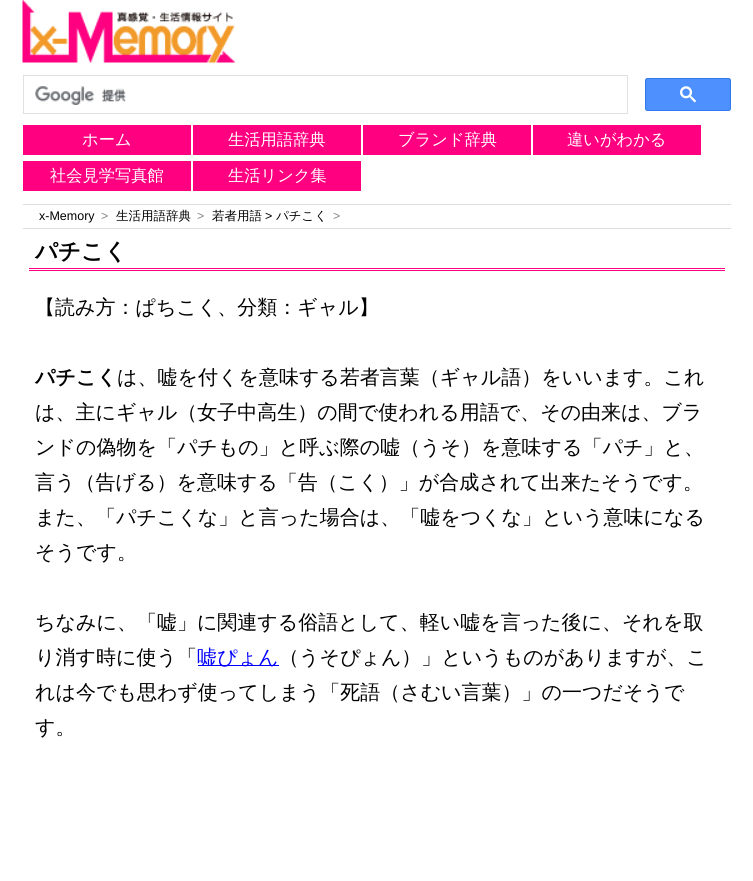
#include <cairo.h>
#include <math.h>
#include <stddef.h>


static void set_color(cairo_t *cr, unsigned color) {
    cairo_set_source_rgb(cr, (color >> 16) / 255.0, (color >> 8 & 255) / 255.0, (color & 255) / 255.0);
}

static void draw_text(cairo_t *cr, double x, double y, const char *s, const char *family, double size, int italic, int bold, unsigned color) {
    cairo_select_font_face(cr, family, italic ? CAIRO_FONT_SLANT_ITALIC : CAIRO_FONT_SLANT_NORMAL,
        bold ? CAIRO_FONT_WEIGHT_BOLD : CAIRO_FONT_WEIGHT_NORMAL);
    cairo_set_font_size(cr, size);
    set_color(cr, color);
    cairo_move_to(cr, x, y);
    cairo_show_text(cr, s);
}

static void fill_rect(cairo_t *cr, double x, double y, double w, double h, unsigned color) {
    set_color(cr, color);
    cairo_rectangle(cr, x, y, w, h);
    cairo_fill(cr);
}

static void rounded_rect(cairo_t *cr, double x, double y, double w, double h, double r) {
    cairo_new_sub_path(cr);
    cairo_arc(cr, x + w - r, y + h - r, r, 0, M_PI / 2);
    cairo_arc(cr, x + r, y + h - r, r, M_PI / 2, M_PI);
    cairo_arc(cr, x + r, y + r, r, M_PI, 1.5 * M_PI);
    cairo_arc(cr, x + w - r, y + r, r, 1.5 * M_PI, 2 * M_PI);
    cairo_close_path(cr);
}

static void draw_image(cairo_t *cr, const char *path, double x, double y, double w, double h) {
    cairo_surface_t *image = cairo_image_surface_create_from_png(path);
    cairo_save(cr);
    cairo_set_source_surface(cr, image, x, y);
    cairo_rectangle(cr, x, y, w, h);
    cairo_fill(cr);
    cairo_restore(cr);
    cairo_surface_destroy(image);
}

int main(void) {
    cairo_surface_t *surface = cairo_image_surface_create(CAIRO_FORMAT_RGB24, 753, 881);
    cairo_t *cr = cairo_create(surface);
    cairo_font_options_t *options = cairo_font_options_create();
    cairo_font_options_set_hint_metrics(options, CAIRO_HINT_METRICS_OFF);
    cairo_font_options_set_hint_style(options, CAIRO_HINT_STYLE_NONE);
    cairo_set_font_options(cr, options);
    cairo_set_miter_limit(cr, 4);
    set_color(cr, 0xFFFFFF);
    cairo_paint(cr);
    draw_image(cr, "assets/img1.png", 22, 0, 213, 63);
    cairo_rectangle(cr, 23.5, 75.5, 604, 38);
    set_color(cr, 0xDFE1E5);
    cairo_set_line_width(cr, 1);
    cairo_stroke(cr);
    draw_image(cr, "assets/img2.png", 35, 86, 91, 19);
    set_color(cr, 0x4D90FE);
    rounded_rect(cr, 645.5, 78.5, 85, 32, 2);
    cairo_fill_preserve(cr);
    set_color(cr, 0x3079ED);
    cairo_stroke(cr);
    draw_image(cr, "assets/img3.png", 680, 86, 16, 17);
    fill_rect(cr, 23, 125, 168, 30, 0xFF0080);
    draw_text(cr, 82, 145, "ホーム", "WenQuanYi Zen Hei Medium", 16.25, 0, 0, 0xFFFFFF);
    fill_rect(cr, 193, 125, 168, 30, 0xFF0080);
    draw_text(cr, 228, 145, "生活用語辞典", "WenQuanYi Zen Hei Medium", 16.25, 0, 0, 0xFFFFFF);
    fill_rect(cr, 363, 125, 168, 30, 0xFF0080);
    draw_text(cr, 398, 145, "ブランド辞典", "WenQuanYi Zen Hei Medium", 16.25, 0, 0, 0xFFFFFF);
    fill_rect(cr, 533, 125, 168, 30, 0xFF0080);
    draw_text(cr, 567, 145, "違いがわかる", "WenQuanYi Zen Hei Medium", 16.25, 0, 0, 0xFFFFFF);
    fill_rect(cr, 23, 161, 168, 30, 0xFF0080);
    draw_text(cr, 50, 181, "社会見学写真館", "WenQuanYi Zen Hei Medium", 16.25, 0, 0, 0xFFFFFF);
    fill_rect(cr, 193, 161, 168, 30, 0xFF0080);
    draw_text(cr, 228, 181, "生活リンク集", "WenQuanYi Zen Hei Medium", 16.25, 0, 0, 0xFFFFFF);
    fill_rect(cr, 23, 204, 708, 1, 0xDDDDDD);
    fill_rect(cr, 23, 228, 708, 1, 0xDDDDDD);
    draw_text(cr, 39, 220, "x-Memory", "Liberation Sans", 12.5, 0, 0, 0x000000);
    draw_text(cr, 101, 220, ">", "Liberation Sans", 12.5, 0, 0, 0x888888);
    draw_text(cr, 116, 220, "生活用語辞典", "WenQuanYi Zen Hei Medium", 12.5, 0, 0, 0x000000);
    draw_text(cr, 197, 220, ">", "Liberation Sans", 12.5, 0, 0, 0x888888);
    draw_text(cr, 212, 220, "若者用語", "WenQuanYi Zen Hei Medium", 12.5, 0, 0, 0x000000);
    draw_text(cr, 265, 220, ">", "Liberation Sans", 12.5, 0, 0, 0x000000);
    draw_text(cr, 276, 220, "パチこく", "WenQuanYi Zen Hei Medium", 12.5, 0, 0, 0x000000);
    draw_text(cr, 333, 220, ">", "Liberation Sans", 12.5, 0, 0, 0x888888);
    fill_rect(cr, 29, 268, 696, 1, 0xFF0080);
    fill_rect(cr, 29, 270, 696, 1, 0xFF0080);
    draw_text(cr, 35, 259, "パチこく", "WenQuanYi Zen Hei", 22.5, 0, 1, 0x000000);
    draw_text(cr, 35, 314, "【読み方：ぱちこく、分類：ギャル】", "WenQuanYi Zen Hei Medium", 20, 0, 0, 0x000000);
    draw_text(cr, 35, 384, "パチこく", "WenQuanYi Zen Hei", 20, 0, 1, 0x000000);
    draw_text(cr, 117, 384, "は、嘘を付くを意味する若者言葉（ギャル語）をいいます。これ", "WenQuanYi Zen Hei Medium", 20, 0, 0, 0x000000);
    draw_text(cr, 35, 419, "は、主にギャル（女子中高生）の間で使われる用語で、その由来は、ブラ", "WenQuanYi Zen Hei Medium", 20, 0, 0, 0x000000);
    draw_text(cr, 35, 454, "ンドの偽物を「パチもの」と呼ぶ際の嘘（うそ）を意味する「パチ」と、", "WenQuanYi Zen Hei Medium", 20, 0, 0, 0x000000);
    draw_text(cr, 35, 489, "言う（告げる）を意味する「告（こく）」が合成されて出来たそうです。", "WenQuanYi Zen Hei Medium", 20, 0, 0, 0x000000);
    draw_text(cr, 35, 524, "また、「パチこくな」と言った場合は、「嘘をつくな」という意味になる", "WenQuanYi Zen Hei Medium", 20, 0, 0, 0x000000);
    draw_text(cr, 35, 559, "そうです。", "WenQuanYi Zen Hei Medium", 20, 0, 0, 0x000000);
    draw_text(cr, 35, 629, "ちなみに、「嘘」に関連する俗語として、軽い嘘を言った後に、それを取", "WenQuanYi Zen Hei Medium", 20, 0, 0, 0x000000);
    draw_text(cr, 35, 664, "り消す時に使う「", "WenQuanYi Zen Hei Medium", 20, 0, 0, 0x000000);
    fill_rect(cr, 198, 665, 81, 1, 0x0000FF);
    draw_text(cr, 197, 664, "嘘ぴょん", "WenQuanYi Zen Hei Medium", 20, 0, 0, 0x0000FF);
    draw_text(cr, 279, 664, "（うそぴょん）」というものがありますが、こ", "WenQuanYi Zen Hei Medium", 20, 0, 0, 0x000000);
    draw_text(cr, 35, 699, "れは今でも思わず使ってしまう「死語（さむい言葉）」の一つだそうで", "WenQuanYi Zen Hei Medium", 20, 0, 0, 0x000000);
    draw_text(cr, 35, 734, "す。", "WenQuanYi Zen Hei Medium", 20, 0, 0, 0x000000);
    cairo_surface_write_to_png(surface, "output.png");
    cairo_font_options_destroy(options);
    cairo_destroy(cr);
    cairo_surface_destroy(surface);
    return 0;
}
